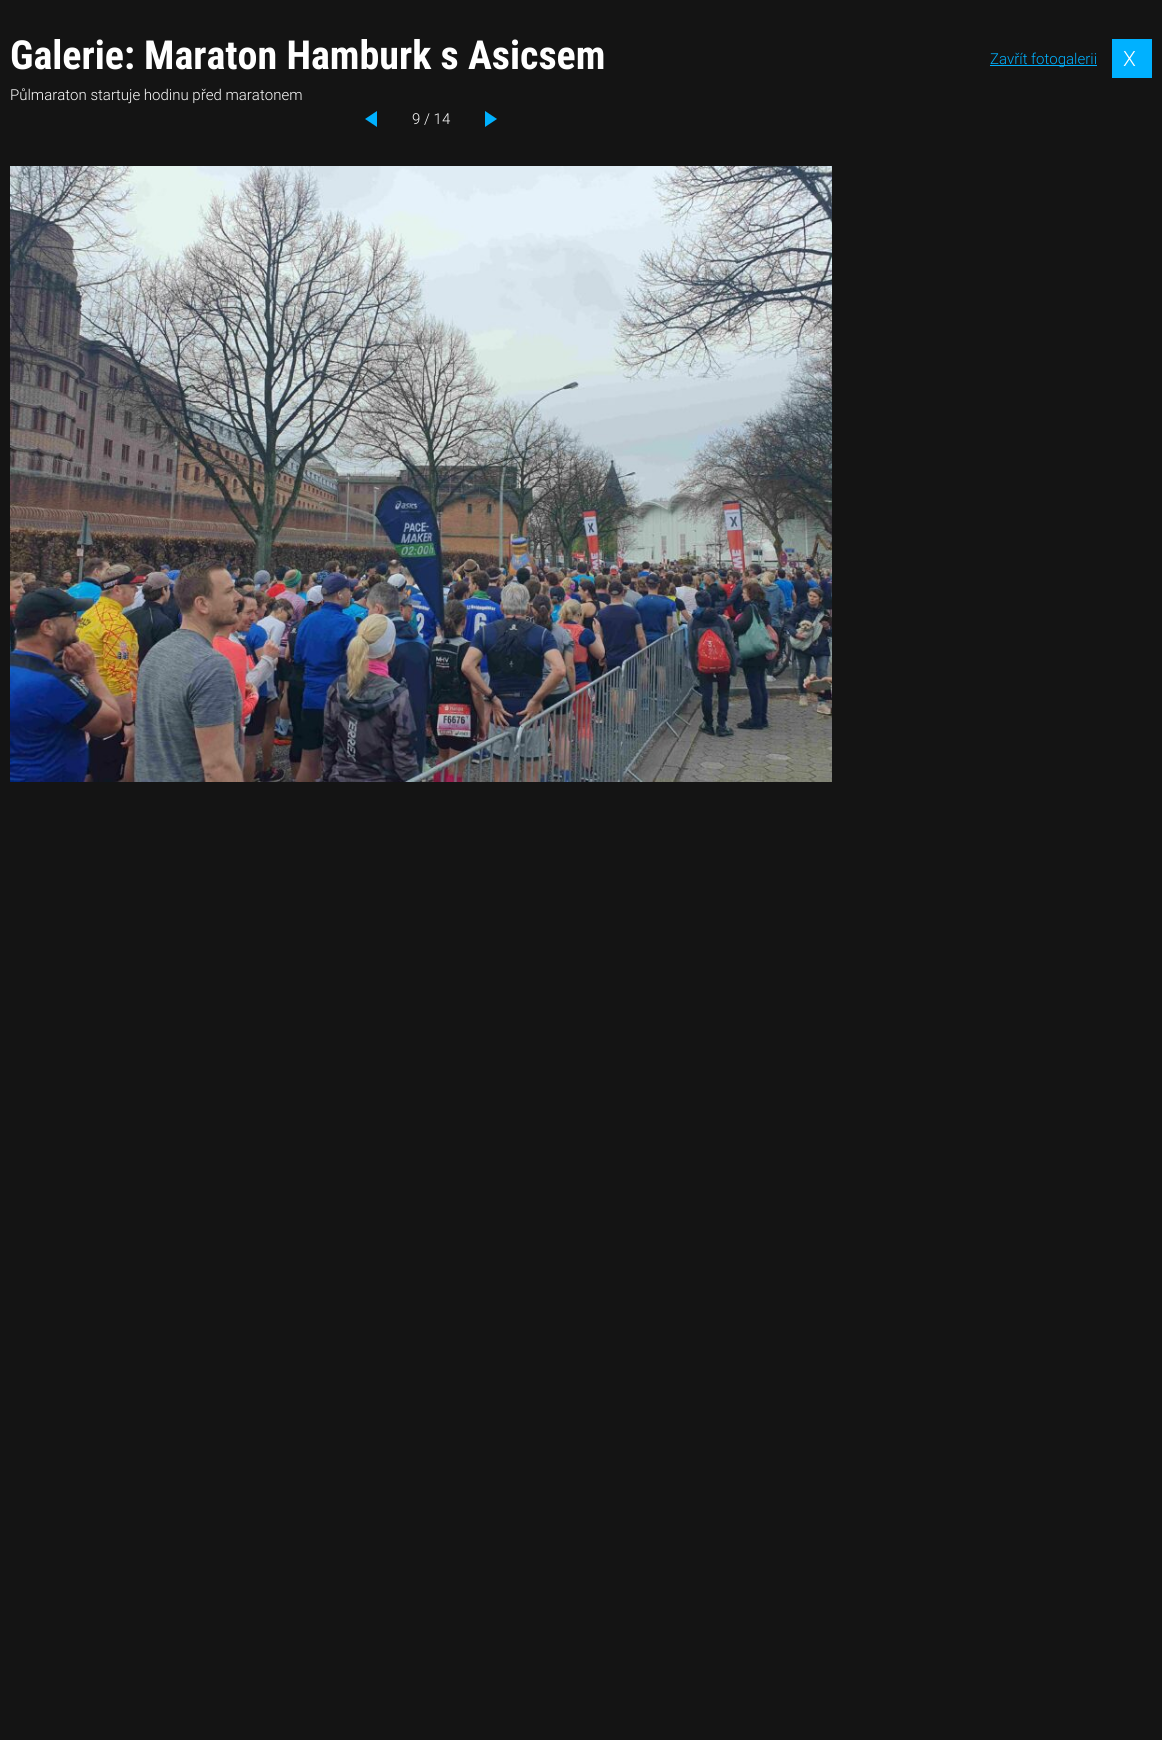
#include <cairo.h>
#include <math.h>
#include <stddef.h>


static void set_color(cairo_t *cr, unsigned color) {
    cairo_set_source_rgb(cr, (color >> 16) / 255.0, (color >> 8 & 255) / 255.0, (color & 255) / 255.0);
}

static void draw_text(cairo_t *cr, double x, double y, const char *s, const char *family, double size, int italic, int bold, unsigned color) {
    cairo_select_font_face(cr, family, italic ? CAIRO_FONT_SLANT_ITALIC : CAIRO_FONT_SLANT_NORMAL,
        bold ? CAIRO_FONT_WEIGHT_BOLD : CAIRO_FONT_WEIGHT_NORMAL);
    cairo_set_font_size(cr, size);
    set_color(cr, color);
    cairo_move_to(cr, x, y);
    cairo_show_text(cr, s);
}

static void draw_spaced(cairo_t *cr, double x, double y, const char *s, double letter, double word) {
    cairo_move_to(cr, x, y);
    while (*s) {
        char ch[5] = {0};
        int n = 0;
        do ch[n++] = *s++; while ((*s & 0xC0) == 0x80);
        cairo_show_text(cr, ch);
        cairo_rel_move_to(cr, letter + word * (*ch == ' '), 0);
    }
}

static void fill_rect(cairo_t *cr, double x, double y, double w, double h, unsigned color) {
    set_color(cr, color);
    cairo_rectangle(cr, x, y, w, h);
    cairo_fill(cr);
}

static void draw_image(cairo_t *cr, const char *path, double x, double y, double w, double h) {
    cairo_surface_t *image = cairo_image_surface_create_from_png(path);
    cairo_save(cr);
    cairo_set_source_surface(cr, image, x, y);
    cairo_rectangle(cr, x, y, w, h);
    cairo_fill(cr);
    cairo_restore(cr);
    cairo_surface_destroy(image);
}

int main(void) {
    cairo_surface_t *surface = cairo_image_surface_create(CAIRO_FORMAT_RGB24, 1162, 1740);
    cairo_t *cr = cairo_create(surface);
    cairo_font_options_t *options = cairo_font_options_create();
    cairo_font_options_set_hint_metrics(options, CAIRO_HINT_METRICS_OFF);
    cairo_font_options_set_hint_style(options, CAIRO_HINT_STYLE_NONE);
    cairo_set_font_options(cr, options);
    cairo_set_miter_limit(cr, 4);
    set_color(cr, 0x141414);
    cairo_paint(cr);
    draw_text(cr, 10, 69, "Galerie: Maraton Hamburk s Asicsem", "Roboto Condensed", 40, 0, 1, 0xFFFFFF);
    draw_text(cr, 10, 100, "Půlmaraton startuje hodinu před maratonem", "Roboto Light", 15, 0, 0, 0xFFFFFF);
    set_color(cr, 0x00B1FF);
    cairo_new_path(cr);
    cairo_move_to(cr, 377, 111);
    cairo_line_to(cr, 377, 127);
    cairo_line_to(cr, 365, 119);
    cairo_close_path(cr);
    cairo_fill(cr);
    draw_text(cr, 412, 124, "9 / 14", "Roboto Light", 15, 0, 0, 0xFFFFFF);
    set_color(cr, 0x00B1FF);
    cairo_new_path(cr);
    cairo_move_to(cr, 485, 127);
    cairo_line_to(cr, 485, 111);
    cairo_line_to(cr, 497, 119);
    cairo_close_path(cr);
    cairo_fill(cr);
    fill_rect(cr, 990, 65, 107, 1, 0x00B1FF);
    draw_text(cr, 990, 64, "Zavřít fotogalerii", "Roboto Light", 15, 0, 0, 0x00B1FF);
    fill_rect(cr, 1112, 39, 40, 39, 0x00B1FF);
    cairo_set_font_size(cr, 21);
    set_color(cr, 0xFFFFFF);
    draw_spaced(cr, 1123, 66, "X", 6, 0);
    draw_image(cr, "assets/img1.png", 10, 166, 822, 616);
    cairo_surface_write_to_png(surface, "output.png");
    cairo_font_options_destroy(options);
    cairo_destroy(cr);
    cairo_surface_destroy(surface);
    return 0;
}
